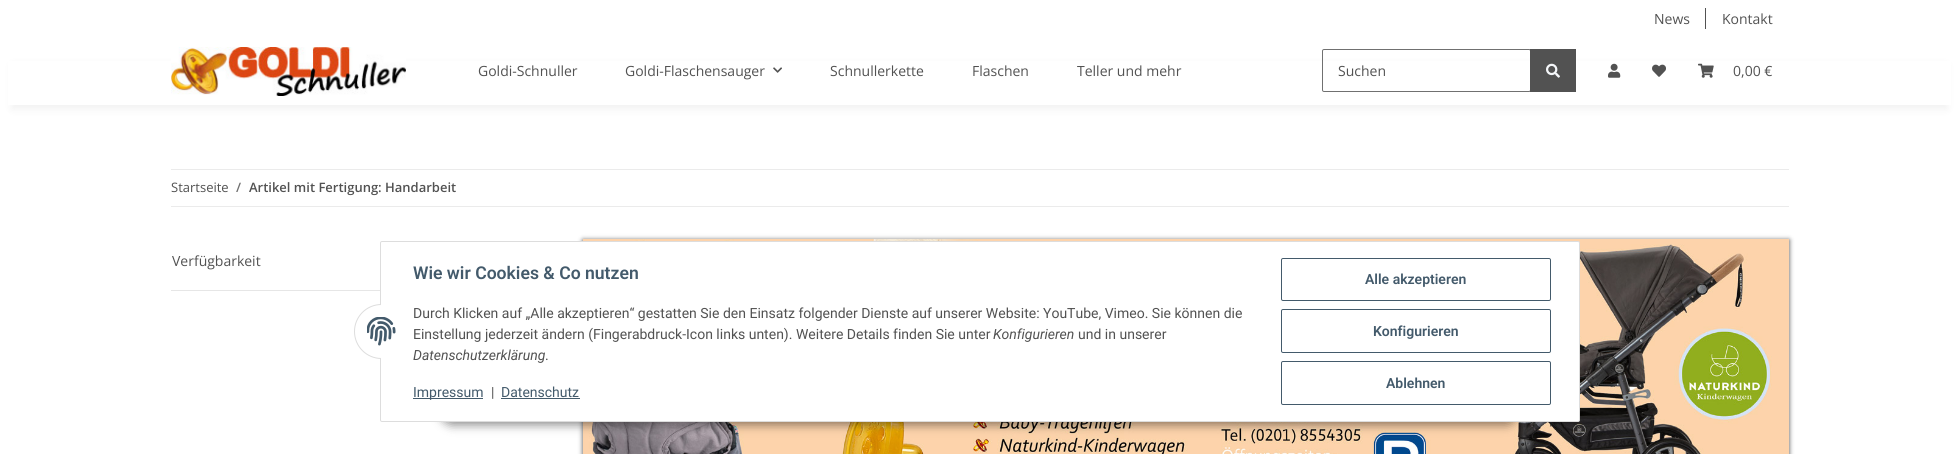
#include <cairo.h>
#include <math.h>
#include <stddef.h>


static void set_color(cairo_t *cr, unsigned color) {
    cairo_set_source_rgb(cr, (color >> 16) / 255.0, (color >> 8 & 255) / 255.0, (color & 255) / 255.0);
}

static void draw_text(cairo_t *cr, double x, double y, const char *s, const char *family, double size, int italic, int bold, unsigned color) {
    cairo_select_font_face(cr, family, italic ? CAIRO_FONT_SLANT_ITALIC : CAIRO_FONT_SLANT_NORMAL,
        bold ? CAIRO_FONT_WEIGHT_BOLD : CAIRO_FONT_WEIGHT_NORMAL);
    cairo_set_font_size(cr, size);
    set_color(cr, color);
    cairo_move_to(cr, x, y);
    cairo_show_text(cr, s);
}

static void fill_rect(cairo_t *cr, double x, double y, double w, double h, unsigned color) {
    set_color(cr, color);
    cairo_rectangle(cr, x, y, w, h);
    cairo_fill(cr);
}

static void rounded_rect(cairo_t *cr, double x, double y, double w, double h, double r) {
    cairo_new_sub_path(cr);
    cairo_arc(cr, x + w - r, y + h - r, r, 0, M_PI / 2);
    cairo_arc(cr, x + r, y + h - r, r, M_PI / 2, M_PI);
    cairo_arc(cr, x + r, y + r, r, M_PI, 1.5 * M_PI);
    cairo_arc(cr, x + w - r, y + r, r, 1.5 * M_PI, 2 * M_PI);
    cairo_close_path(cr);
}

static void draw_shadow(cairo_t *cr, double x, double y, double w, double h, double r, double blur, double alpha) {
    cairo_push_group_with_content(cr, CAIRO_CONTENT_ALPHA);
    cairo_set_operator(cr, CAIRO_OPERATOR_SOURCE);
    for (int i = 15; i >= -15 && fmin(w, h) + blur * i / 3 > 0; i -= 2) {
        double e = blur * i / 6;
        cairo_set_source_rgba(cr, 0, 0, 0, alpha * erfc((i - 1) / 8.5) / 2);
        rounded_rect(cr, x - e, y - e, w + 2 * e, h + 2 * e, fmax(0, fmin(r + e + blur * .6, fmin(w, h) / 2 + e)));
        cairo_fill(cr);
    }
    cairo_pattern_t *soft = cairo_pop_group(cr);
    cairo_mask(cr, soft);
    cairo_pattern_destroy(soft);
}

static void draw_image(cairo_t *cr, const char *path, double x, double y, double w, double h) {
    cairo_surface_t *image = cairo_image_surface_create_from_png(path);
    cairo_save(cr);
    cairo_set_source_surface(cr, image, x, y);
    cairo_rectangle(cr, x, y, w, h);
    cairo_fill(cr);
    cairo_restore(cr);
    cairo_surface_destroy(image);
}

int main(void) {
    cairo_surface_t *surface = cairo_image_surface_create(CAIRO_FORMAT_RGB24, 1959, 454);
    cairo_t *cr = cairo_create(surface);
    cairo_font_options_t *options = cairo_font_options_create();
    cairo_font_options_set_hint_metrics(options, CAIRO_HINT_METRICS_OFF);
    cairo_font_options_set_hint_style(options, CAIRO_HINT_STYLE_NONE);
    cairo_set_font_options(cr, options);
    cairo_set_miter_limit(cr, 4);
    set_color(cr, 0xFFFFFF);
    cairo_paint(cr);
    draw_text(cr, 1654, 24, "News", "Open Sans", 14, 0, 0, 0x525252);
    fill_rect(cr, 1705, 8, 1, 21, 0x525252);
    draw_text(cr, 1722, 24, "Kontakt", "Open Sans", 14, 0, 0, 0x525252);
    set_color(cr, 0x000000);
    draw_shadow(cr, 12, 65, 1935, 44, 0, 4.5, 0.06);
    fill_rect(cr, 8, 61, 1943, 44, 0xFFFFFF);
    draw_image(cr, "assets/img1.png", 171, 47, 235, 49);
    draw_text(cr, 478, 76, "Goldi-Schnuller", "Open Sans", 14, 0, 0, 0x525252);
    draw_text(cr, 625, 76, "Goldi-Flaschensauger", "Open Sans", 14, 0, 0, 0x525252);
    draw_image(cr, "assets/img2.png", 773, 67, 9, 6);
    draw_text(cr, 830, 76, "Schnullerkette", "Open Sans", 14, 0, 0, 0x525252);
    draw_text(cr, 972, 76, "Flaschen", "Open Sans", 14, 0, 0, 0x525252);
    draw_text(cr, 1077, 76, "Teller und mehr", "Open Sans", 14, 0, 0, 0x525252);
    rounded_rect(cr, 1322.5, 49.5, 208, 42, 1.5);
    set_color(cr, 0x707070);
    cairo_set_line_width(cr, 1);
    cairo_stroke(cr);
    draw_text(cr, 1338, 76, "Suchen", "Open Sans", 14, 0, 0, 0x525252);
    fill_rect(cr, 1530, 49, 46, 43, 0x525252);
    draw_image(cr, "assets/img3.png", 1546, 63, 14, 15);
    draw_image(cr, "assets/img4.png", 1608, 63, 13, 15);
    draw_image(cr, "assets/img5.png", 1652, 64, 14, 13);
    draw_image(cr, "assets/img6.png", 1698, 63, 16, 15);
    draw_text(cr, 1733, 76, "0,00 €", "Open Sans", 14, 0, 0, 0x525252);
    fill_rect(cr, 171, 169, 1618, 1, 0xEBEBEB);
    fill_rect(cr, 171, 206, 1618, 1, 0xEBEBEB);
    draw_text(cr, 171, 192, "Startseite", "Open Sans", 13, 0, 0, 0x525252);
    draw_text(cr, 236, 192, "/", "Open Sans SemiBold", 13, 0, 0, 0x707070);
    draw_text(cr, 249, 192, "Artikel mit Fertigung: Handarbeit", "Open Sans SemiBold", 13, 0, 0, 0x525252);
    draw_text(cr, 172, 266, "Verfügbarkeit", "Open Sans", 14, 0, 0, 0x525252);
    fill_rect(cr, 171, 290, 209, 1, 0xE6E6E6);
    set_color(cr, 0x4A4A4A);
    draw_shadow(cr, 583, 240, 1206, 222, 0, 2.5, 1);
    draw_image(cr, "assets/img7.png", 583, 239, 1206, 215);
    set_color(cr, 0x000000);
    draw_shadow(cr, 440, 393, 1079, 32, 16, 5, 0.45);
    set_color(cr, 0xFFFFFF);
    rounded_rect(cr, 380.5, 241.5, 1199, 180, 1.5);
    cairo_fill_preserve(cr);
    set_color(cr, 0xDDDDDD);
    cairo_stroke(cr);
    set_color(cr, 0xFFFFFF);
    cairo_arc(cr, 381.5, 331.5, 27, 0, 2 * M_PI);
    cairo_fill_preserve(cr);
    set_color(cr, 0xDDDDDD);
    cairo_stroke(cr);
    fill_rect(cr, 381, 304, 28, 55, 0xFFFFFF);
    draw_image(cr, "assets/img8.png", 367, 317, 29, 29);
    draw_text(cr, 413, 279, "Wie wir Cookies & Co nutzen", "Roboto SemiBold", 17.6, 0, 0, 0x435A6B);
    draw_text(cr, 413, 318, "Durch Klicken auf „Alle akzeptieren“ gestatten Sie den Einsatz folgender Dienste auf unserer Website: YouTube, Vimeo. Sie können die", "Roboto", 14, 0, 0, 0x525252);
    draw_text(cr, 413, 339, "Einstellung jederzeit ändern (Fingerabdruck-Icon links unten). Weitere Details finden Sie unter", "Roboto", 14, 0, 0, 0x525252);
    draw_text(cr, 993, 339, "Konfigurieren", "Roboto", 14, 1, 0, 0x525252);
    draw_text(cr, 1078, 339, "und in unserer", "Roboto", 14, 0, 0, 0x525252);
    draw_text(cr, 413, 360, "Datenschutzerklärung", "Roboto", 14, 1, 0, 0x525252);
    draw_text(cr, 545, 360, ".", "Roboto", 14, 0, 0, 0x525252);
    fill_rect(cr, 413, 398, 70, 1, 0x435A6B);
    draw_text(cr, 413, 397, "Impressum", "Roboto", 14, 0, 0, 0x435A6B);
    draw_text(cr, 491, 397, "|", "Roboto", 14, 0, 0, 0x525252);
    draw_text(cr, 501, 397, "Datenschutz", "Roboto", 14, 0, 0, 0x435A6B);
    fill_rect(cr, 501, 398, 79, 1, 0x435A6B);
    rounded_rect(cr, 1281.5, 258.5, 269, 42, 1.5);
    cairo_stroke(cr);
    draw_text(cr, 1365, 284, "Alle akzeptieren", "Roboto SemiBold", 14, 0, 0, 0x435A6B);
    rounded_rect(cr, 1281.5, 309.5, 269, 43, 1.5);
    cairo_stroke(cr);
    draw_text(cr, 1373, 336, "Konfigurieren", "Roboto SemiBold", 14, 0, 0, 0x435A6B);
    rounded_rect(cr, 1281.5, 361.5, 269, 43, 1.5);
    cairo_stroke(cr);
    draw_text(cr, 1386, 388, "Ablehnen", "Roboto SemiBold", 14, 0, 0, 0x435A6B);
    cairo_surface_write_to_png(surface, "output.png");
    cairo_font_options_destroy(options);
    cairo_destroy(cr);
    cairo_surface_destroy(surface);
    return 0;
}
